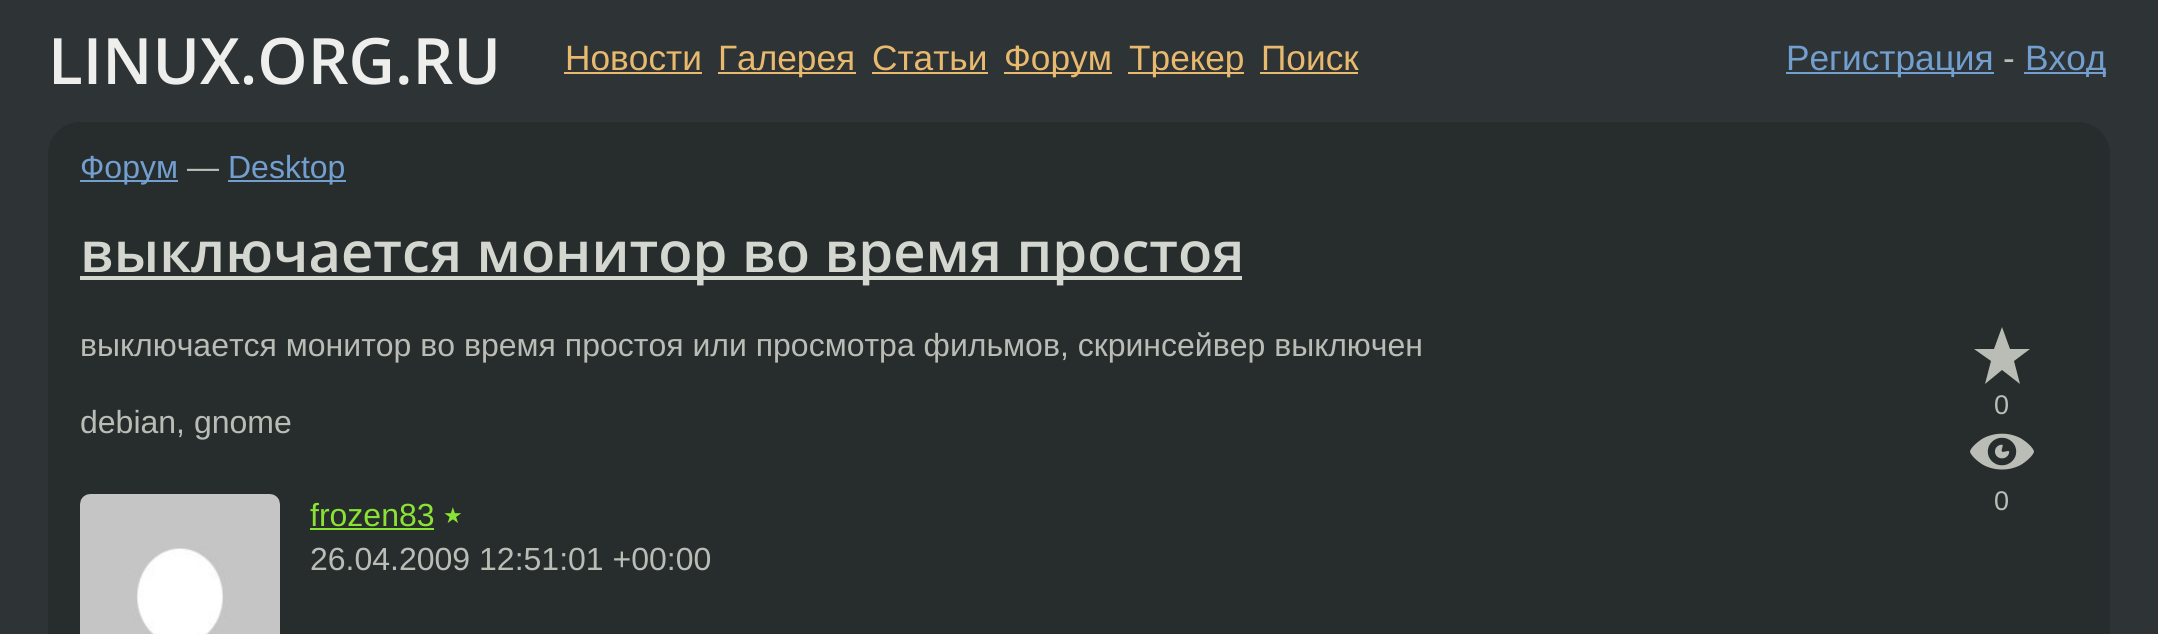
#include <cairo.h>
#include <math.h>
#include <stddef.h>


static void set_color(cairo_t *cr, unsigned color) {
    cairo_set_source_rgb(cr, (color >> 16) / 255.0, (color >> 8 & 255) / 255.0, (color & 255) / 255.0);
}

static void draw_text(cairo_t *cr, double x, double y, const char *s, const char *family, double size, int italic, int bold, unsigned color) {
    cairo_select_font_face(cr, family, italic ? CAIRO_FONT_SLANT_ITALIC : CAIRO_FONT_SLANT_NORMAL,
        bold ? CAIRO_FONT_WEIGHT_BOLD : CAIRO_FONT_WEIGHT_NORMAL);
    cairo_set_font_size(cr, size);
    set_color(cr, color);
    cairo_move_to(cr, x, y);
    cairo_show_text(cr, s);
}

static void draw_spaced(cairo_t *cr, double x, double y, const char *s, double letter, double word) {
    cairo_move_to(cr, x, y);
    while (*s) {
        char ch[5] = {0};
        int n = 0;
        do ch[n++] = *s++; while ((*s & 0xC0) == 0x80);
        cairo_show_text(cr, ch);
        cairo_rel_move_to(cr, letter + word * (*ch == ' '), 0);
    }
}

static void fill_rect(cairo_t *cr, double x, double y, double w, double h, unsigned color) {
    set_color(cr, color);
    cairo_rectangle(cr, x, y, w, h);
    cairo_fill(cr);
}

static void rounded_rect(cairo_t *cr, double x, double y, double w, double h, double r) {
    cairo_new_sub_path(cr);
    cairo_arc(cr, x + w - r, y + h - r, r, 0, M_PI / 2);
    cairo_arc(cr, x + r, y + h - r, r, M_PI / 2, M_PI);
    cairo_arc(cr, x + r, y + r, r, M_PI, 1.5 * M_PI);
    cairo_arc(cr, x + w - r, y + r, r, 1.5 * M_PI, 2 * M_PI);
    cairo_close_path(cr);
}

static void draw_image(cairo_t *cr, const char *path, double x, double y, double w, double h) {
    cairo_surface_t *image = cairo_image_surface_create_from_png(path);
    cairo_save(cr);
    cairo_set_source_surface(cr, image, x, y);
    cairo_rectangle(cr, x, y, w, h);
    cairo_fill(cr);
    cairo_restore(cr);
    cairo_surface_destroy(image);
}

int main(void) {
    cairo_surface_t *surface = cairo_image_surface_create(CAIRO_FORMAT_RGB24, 2158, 634);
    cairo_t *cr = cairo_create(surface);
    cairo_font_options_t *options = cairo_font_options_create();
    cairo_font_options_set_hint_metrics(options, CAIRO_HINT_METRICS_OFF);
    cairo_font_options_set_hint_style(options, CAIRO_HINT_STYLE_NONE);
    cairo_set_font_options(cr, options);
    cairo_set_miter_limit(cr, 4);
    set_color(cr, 0x2E3436);
    cairo_paint(cr);
    draw_text(cr, 48, 84, "LINUX.ORG.RU", "Open Sans SemiBold", 64, 0, 0, 0xEEEEEC);
    draw_text(cr, 565, 70, "Новости", "Liberation Sans", 35.25, 0, 0, 0xE9B96E);
    fill_rect(cr, 564, 72, 138, 2, 0xE9B96E);
    fill_rect(cr, 718, 72, 138, 2, 0xE9B96E);
    draw_text(cr, 718, 70, "Галерея", "Liberation Sans", 35.25, 0, 0, 0xE9B96E);
    draw_text(cr, 872, 70, "Статьи", "Liberation Sans", 35.25, 0, 0, 0xE9B96E);
    fill_rect(cr, 872, 72, 116, 2, 0xE9B96E);
    fill_rect(cr, 1004, 72, 108, 2, 0xE9B96E);
    draw_text(cr, 1004, 70, "Форум", "Liberation Sans", 35.25, 0, 0, 0xE9B96E);
    fill_rect(cr, 1128, 72, 116, 2, 0xE9B96E);
    draw_text(cr, 1129, 70, "Трекер", "Liberation Sans", 35.25, 0, 0, 0xE9B96E);
    draw_text(cr, 1261, 70, "Поиск", "Liberation Sans", 35.25, 0, 0, 0xE9B96E);
    fill_rect(cr, 1260, 72, 98, 2, 0xE9B96E);
    fill_rect(cr, 1786, 72, 208, 2, 0x729FCF);
    draw_text(cr, 1786, 70, "Регистрация", "Liberation Sans", 35.25, 0, 0, 0x729FCF);
    draw_text(cr, 2003, 70, "-", "Liberation Sans", 35.25, 0, 0, 0xBABDB6);
    fill_rect(cr, 2024, 72, 82, 2, 0x729FCF);
    draw_text(cr, 2025, 70, "Вход", "Liberation Sans", 35.25, 0, 0, 0x729FCF);
    set_color(cr, 0x272C2D);
    rounded_rect(cr, 48, 122, 2062, 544, 32);
    cairo_fill(cr);
    fill_rect(cr, 80, 180, 98, 2, 0x729FCF);
    draw_text(cr, 80, 178, "Форум", "Liberation Sans", 32, 0, 0, 0x729FCF);
    draw_text(cr, 187, 178, "—", "Liberation Sans", 32, 0, 0, 0xBABDB6);
    fill_rect(cr, 228, 180, 118, 2, 0x729FCF);
    draw_text(cr, 228, 178, "Desktop", "Liberation Sans", 32, 0, 0, 0x729FCF);
    fill_rect(cr, 80, 276, 1162, 4, 0xD3D7CF);
    draw_text(cr, 80, 272, "выключается монитор во время простоя", "Open Sans SemiBold", 56.1, 0, 0, 0xD3D7CF);
    draw_text(cr, 80, 356, "выключается монитор во время простоя или просмотра фильмов, скринсейвер выключен", "Liberation Sans", 32, 0, 0, 0xBABDB6);
    draw_text(cr, 80, 433, "debian, gnome", "Liberation Sans", 32, 0, 0, 0xBABDB6);
    cairo_new_path(cr);
    cairo_move_to(cr, 2002, 327);
    cairo_line_to(cr, 2010, 349);
    cairo_line_to(cr, 2030, 349);
    cairo_line_to(cr, 2014, 361);
    cairo_line_to(cr, 2020, 384);
    cairo_line_to(cr, 2002, 370);
    cairo_line_to(cr, 1985, 384);
    cairo_line_to(cr, 1991, 361);
    cairo_line_to(cr, 1974, 349);
    cairo_line_to(cr, 1994, 349);
    cairo_close_path(cr);
    cairo_fill(cr);
    draw_text(cr, 1994, 414, "0", "Liberation Sans", 27, 0, 0, 0xBABDB6);
    draw_image(cr, "assets/img1.png", 1970, 433, 64, 37);
    draw_text(cr, 1994, 510, "0", "Liberation Sans", 27, 0, 0, 0xBABDB6);
    draw_image(cr, "assets/img2.png", 80, 494, 200, 140);
    draw_text(cr, 310, 526, "frozen83", "Liberation Sans", 32, 0, 0, 0x8AE234);
    fill_rect(cr, 310, 528, 124, 2, 0x8AE234);
    cairo_select_font_face(cr, "DejaVu Sans", CAIRO_FONT_SLANT_NORMAL, CAIRO_FONT_WEIGHT_NORMAL);
    cairo_set_font_size(cr, 22);
    draw_spaced(cr, 443, 523, "★", 3, 0);
    draw_text(cr, 310, 570, "26.04.2009 12:51:01 +00:00", "Liberation Sans", 32, 0, 0, 0xBABDB6);
    cairo_surface_write_to_png(surface, "output.png");
    cairo_font_options_destroy(options);
    cairo_destroy(cr);
    cairo_surface_destroy(surface);
    return 0;
}
